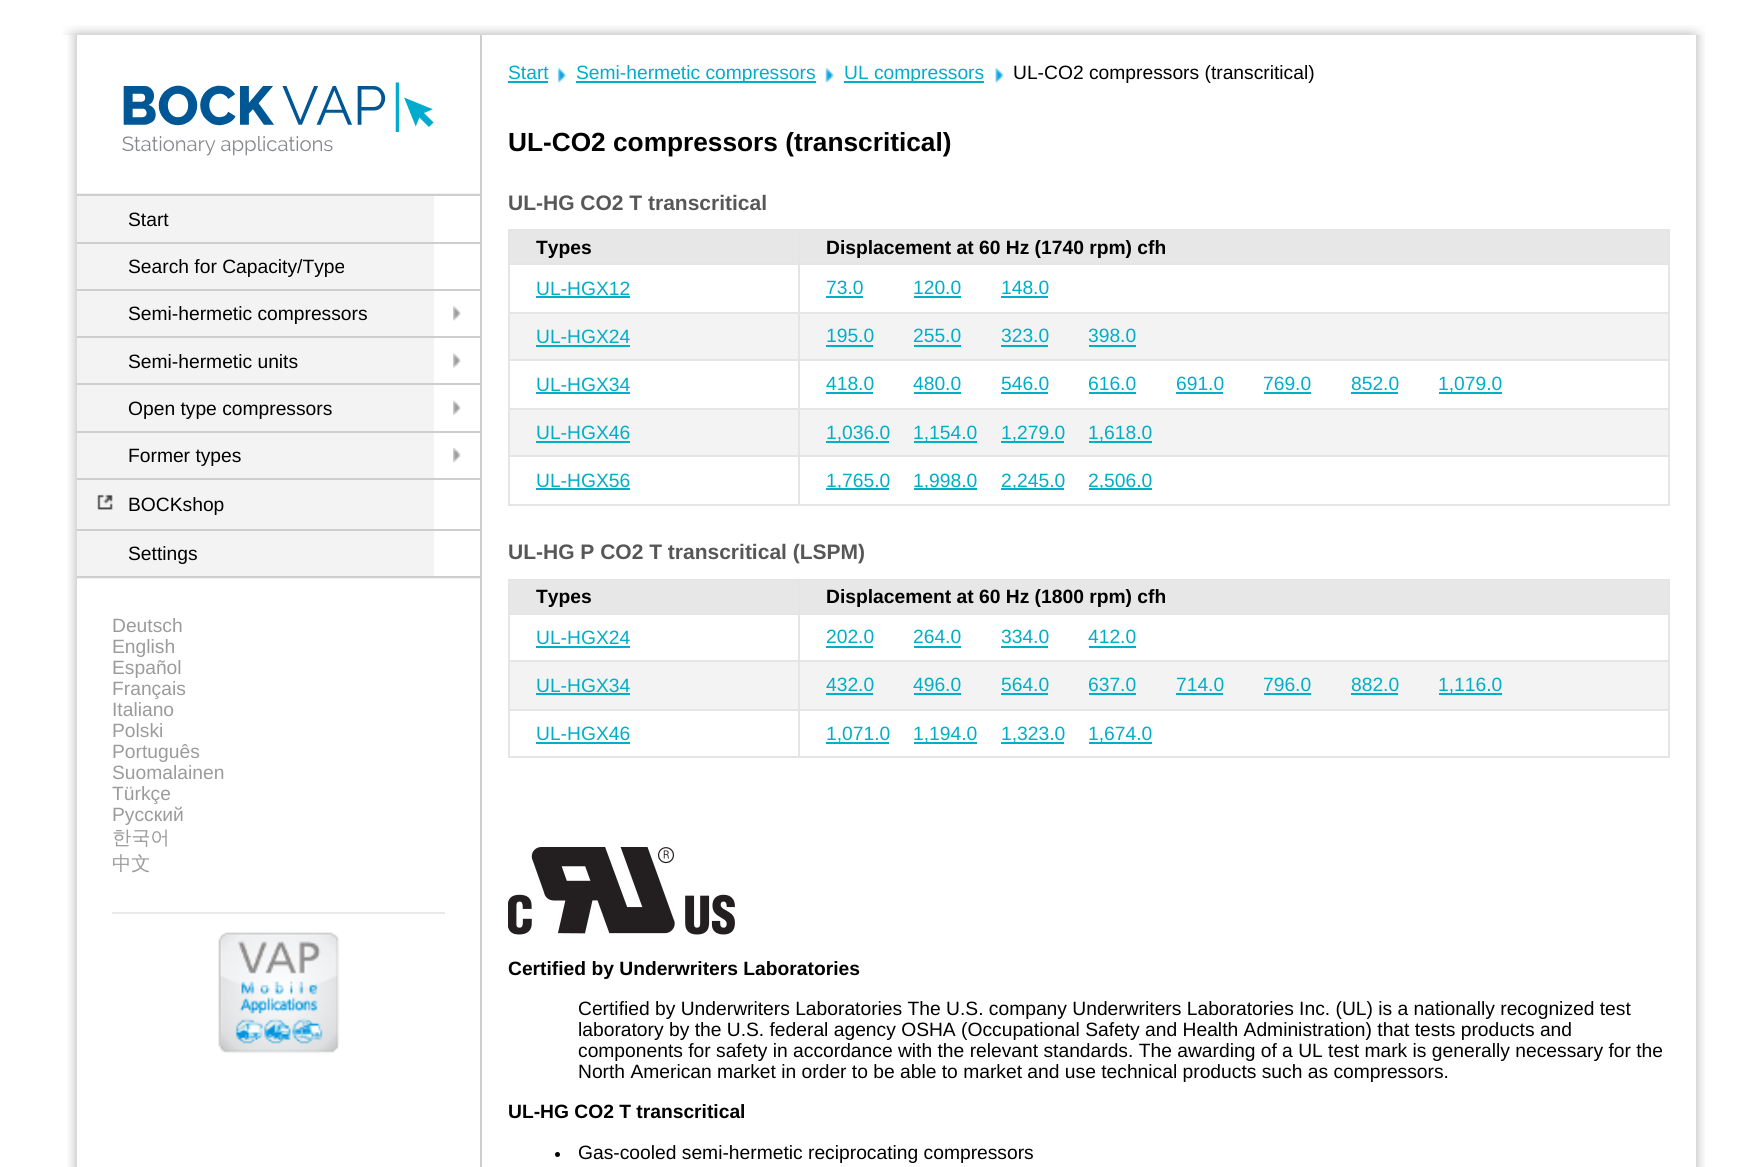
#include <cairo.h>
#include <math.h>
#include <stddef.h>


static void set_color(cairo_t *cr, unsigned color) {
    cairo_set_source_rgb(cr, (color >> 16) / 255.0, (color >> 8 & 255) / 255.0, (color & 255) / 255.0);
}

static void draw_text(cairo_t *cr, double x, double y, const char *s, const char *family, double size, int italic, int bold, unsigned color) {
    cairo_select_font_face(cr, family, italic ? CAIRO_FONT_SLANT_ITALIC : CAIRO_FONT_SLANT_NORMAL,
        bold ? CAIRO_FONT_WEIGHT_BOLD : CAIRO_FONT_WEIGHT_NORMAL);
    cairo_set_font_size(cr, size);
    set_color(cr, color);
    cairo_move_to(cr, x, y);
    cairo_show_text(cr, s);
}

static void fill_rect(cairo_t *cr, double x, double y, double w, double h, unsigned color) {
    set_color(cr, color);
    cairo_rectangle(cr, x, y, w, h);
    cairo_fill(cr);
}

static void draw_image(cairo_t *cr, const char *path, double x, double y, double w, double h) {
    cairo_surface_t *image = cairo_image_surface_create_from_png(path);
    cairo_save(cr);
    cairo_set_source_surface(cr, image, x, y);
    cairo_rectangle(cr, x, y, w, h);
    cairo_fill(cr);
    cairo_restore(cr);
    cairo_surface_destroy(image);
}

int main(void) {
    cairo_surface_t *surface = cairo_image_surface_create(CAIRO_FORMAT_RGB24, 1758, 1167);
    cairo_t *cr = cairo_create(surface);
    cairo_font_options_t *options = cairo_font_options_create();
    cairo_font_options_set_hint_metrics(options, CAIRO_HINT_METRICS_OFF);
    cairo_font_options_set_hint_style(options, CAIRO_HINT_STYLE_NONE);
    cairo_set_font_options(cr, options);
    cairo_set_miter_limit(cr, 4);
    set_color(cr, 0xFFFFFF);
    cairo_paint(cr);
    draw_image(cr, "assets/img1.png", 63, 25, 1642, 10);
    draw_image(cr, "assets/img2.png", 67, 35, 10, 1132);
    draw_image(cr, "assets/img3.png", 1696, 35, 9, 1132);
    fill_rect(cr, 480, 35, 2, 1132, 0xCECECE);
    draw_image(cr, "assets/img4.png", 122, 82, 312, 74);
    fill_rect(cr, 77, 193, 403, 386, 0xF3F3F3);
    fill_rect(cr, 434, 196, 46, 46, 0xFFFFFF);
    fill_rect(cr, 77, 194, 403, 2, 0xCECECE);
    draw_text(cr, 128, 226, "Start", "Liberation Sans", 19.25, 0, 0, 0x000000);
    fill_rect(cr, 434, 244, 46, 45, 0xFFFFFF);
    fill_rect(cr, 77, 242, 403, 2, 0xCECECE);
    draw_text(cr, 128, 273, "Search for Capacity/Type", "Liberation Sans", 19.25, 0, 0, 0x000000);
    fill_rect(cr, 434, 291, 46, 45, 0xFFFFFF);
    fill_rect(cr, 77, 289, 403, 2, 0xCECECE);
    draw_image(cr, "assets/img5.png", 453, 306, 8, 15);
    draw_text(cr, 128, 320, "Semi-hermetic compressors", "Liberation Sans", 19.25, 0, 0, 0x000000);
    fill_rect(cr, 434, 338, 46, 45, 0xFFFFFF);
    fill_rect(cr, 77, 336, 403, 2, 0xCECECE);
    draw_image(cr, "assets/img6.png", 453, 353, 8, 15);
    draw_text(cr, 128, 368, "Semi-hermetic units", "Liberation Sans", 19.25, 0, 0, 0x000000);
    fill_rect(cr, 434, 385, 46, 46, 0xFFFFFF);
    fill_rect(cr, 77, 383, 403, 2, 0xCECECE);
    draw_image(cr, "assets/img7.png", 453, 400, 8, 15);
    draw_text(cr, 128, 415, "Open type compressors", "Liberation Sans", 19.25, 0, 0, 0x000000);
    fill_rect(cr, 434, 433, 46, 45, 0xFFFFFF);
    fill_rect(cr, 77, 431, 403, 2, 0xCECECE);
    draw_image(cr, "assets/img8.png", 453, 448, 8, 14);
    draw_text(cr, 128, 462, "Former types", "Liberation Sans", 19.25, 0, 0, 0x000000);
    fill_rect(cr, 434, 480, 46, 49, 0xFFFFFF);
    fill_rect(cr, 77, 478, 403, 2, 0xCECECE);
    draw_image(cr, "assets/img9.png", 97, 494, 16, 16);
    draw_text(cr, 128, 511, "BOCKshop", "Liberation Sans", 19.25, 0, 0, 0x000000);
    fill_rect(cr, 434, 531, 46, 45, 0xFFFFFF);
    fill_rect(cr, 77, 529, 403, 2, 0xCECECE);
    fill_rect(cr, 77, 576, 403, 2, 0xCECECE);
    draw_text(cr, 128, 560, "Settings", "Liberation Sans", 19.25, 0, 0, 0x000000);
    draw_text(cr, 112, 632, "Deutsch", "Liberation Sans", 19.25, 0, 0, 0x9B9B9B);
    draw_text(cr, 112, 653, "English", "Liberation Sans", 19.25, 0, 0, 0x9B9B9B);
    draw_text(cr, 112, 674, "Español", "Liberation Sans", 19.25, 0, 0, 0x9B9B9B);
    draw_text(cr, 112, 695, "Français", "Liberation Sans", 19.25, 0, 0, 0x9B9B9B);
    draw_text(cr, 112, 716, "Italiano", "Liberation Sans", 19.25, 0, 0, 0x9B9B9B);
    draw_text(cr, 112, 737, "Polski", "Liberation Sans", 19.25, 0, 0, 0x9B9B9B);
    draw_text(cr, 112, 758, "Português", "Liberation Sans", 19.25, 0, 0, 0x9B9B9B);
    draw_text(cr, 112, 779, "Suomalainen", "Liberation Sans", 19.25, 0, 0, 0x9B9B9B);
    draw_text(cr, 112, 800, "Türkçe", "Liberation Sans", 19.25, 0, 0, 0x9B9B9B);
    draw_text(cr, 112, 821, "Русский", "Liberation Sans", 19.25, 0, 0, 0x9B9B9B);
    draw_text(cr, 112, 844, "한국어", "WenQuanYi Zen Hei Medium", 19.25, 0, 0, 0x9B9B9B);
    draw_text(cr, 112, 870, "中文", "WenQuanYi Zen Hei Medium", 19.25, 0, 0, 0x9B9B9B);
    fill_rect(cr, 112, 912, 333, 2, 0xE9E9E9);
    draw_image(cr, "assets/img10.png", 218, 932, 122, 122);
    draw_text(cr, 508, 79, "Start", "Liberation Sans", 19.25, 0, 0, 0x00AEC7);
    fill_rect(cr, 508, 81, 40, 2, 0x00AEC7);
    draw_image(cr, "assets/img11.png", 557, 67, 9, 16);
    fill_rect(cr, 576, 81, 240, 2, 0x00AEC7);
    draw_text(cr, 576, 79, "Semi-hermetic compressors", "Liberation Sans", 19.25, 0, 0, 0x00AEC7);
    draw_image(cr, "assets/img12.png", 825, 67, 9, 16);
    fill_rect(cr, 844, 81, 140, 2, 0x00AEC7);
    draw_text(cr, 844, 79, "UL compressors", "Liberation Sans", 19.25, 0, 0, 0x00AEC7);
    draw_image(cr, "assets/img13.png", 995, 67, 9, 16);
    draw_text(cr, 1013, 79, "UL-CO2 compressors (transcritical)", "Liberation Sans", 19.25, 0, 0, 0x000000);
    draw_text(cr, 508, 151, "UL-CO2 compressors (transcritical)", "Liberation Sans", 26.25, 0, 1, 0x000000);
    draw_text(cr, 508, 210, "UL-HG CO2 T transcritical", "Liberation Sans", 21, 0, 1, 0x575757);
    fill_rect(cr, 508, 229, 1162, 2, 0xE5E5E5);
    fill_rect(cr, 1668, 229, 2, 277, 0xE5E5E5);
    fill_rect(cr, 508, 504, 1162, 2, 0xE5E5E5);
    fill_rect(cr, 508, 229, 2, 277, 0xE5E5E5);
    fill_rect(cr, 510, 231, 288, 32, 0xE7E7E7);
    draw_text(cr, 536, 254, "Types", "Liberation Sans", 19.25, 0, 1, 0x000000);
    fill_rect(cr, 800, 231, 868, 32, 0xE7E7E7);
    fill_rect(cr, 798, 263, 872, 2, 0xE5E5E5);
    fill_rect(cr, 798, 312, 872, 2, 0xE5E5E5);
    fill_rect(cr, 798, 359, 872, 2, 0xE5E5E5);
    fill_rect(cr, 798, 408, 872, 2, 0xE5E5E5);
    fill_rect(cr, 798, 455, 872, 2, 0xE5E5E5);
    fill_rect(cr, 798, 455, 2, 51, 0xE5E5E5);
    fill_rect(cr, 508, 455, 292, 2, 0xE5E5E5);
    fill_rect(cr, 798, 408, 2, 49, 0xE5E5E5);
    fill_rect(cr, 508, 408, 292, 2, 0xE5E5E5);
    fill_rect(cr, 798, 359, 2, 51, 0xE5E5E5);
    fill_rect(cr, 508, 359, 292, 2, 0xE5E5E5);
    fill_rect(cr, 798, 312, 2, 49, 0xE5E5E5);
    fill_rect(cr, 508, 312, 292, 2, 0xE5E5E5);
    fill_rect(cr, 798, 263, 2, 50, 0xE5E5E5);
    fill_rect(cr, 508, 263, 292, 2, 0xE5E5E5);
    fill_rect(cr, 798, 229, 2, 35, 0xE5E5E5);
    draw_text(cr, 826, 254, "Displacement at 60 Hz (1740 rpm) cfh", "Liberation Sans", 19.25, 0, 1, 0x000000);
    draw_text(cr, 536, 295, "UL-HGX12", "Liberation Sans", 19.25, 0, 0, 0x00AEC7);
    fill_rect(cr, 536, 296, 94, 2, 0x00AEC7);
    draw_text(cr, 826, 294, "73.0", "Liberation Sans", 19.25, 0, 0, 0x00AEC7);
    fill_rect(cr, 826, 296, 37, 2, 0x00AEC7);
    draw_text(cr, 913, 294, "120.0", "Liberation Sans", 19.25, 0, 0, 0x00AEC7);
    fill_rect(cr, 914, 296, 47, 2, 0x00AEC7);
    draw_text(cr, 1001, 294, "148.0", "Liberation Sans", 19.25, 0, 0, 0x00AEC7);
    fill_rect(cr, 1001, 296, 47, 2, 0x00AEC7);
    fill_rect(cr, 510, 314, 288, 45, 0xF3F3F3);
    draw_text(cr, 536, 343, "UL-HGX24", "Liberation Sans", 19.25, 0, 0, 0x00AEC7);
    fill_rect(cr, 536, 345, 94, 2, 0x00AEC7);
    fill_rect(cr, 800, 314, 868, 45, 0xF3F3F3);
    draw_text(cr, 826, 342, "195.0", "Liberation Sans", 19.25, 0, 0, 0x00AEC7);
    fill_rect(cr, 826, 345, 47, 2, 0x00AEC7);
    draw_text(cr, 913, 342, "255.0", "Liberation Sans", 19.25, 0, 0, 0x00AEC7);
    fill_rect(cr, 914, 345, 47, 2, 0x00AEC7);
    draw_text(cr, 1001, 342, "323.0", "Liberation Sans", 19.25, 0, 0, 0x00AEC7);
    fill_rect(cr, 1001, 345, 47, 2, 0x00AEC7);
    draw_text(cr, 1088, 342, "398.0", "Liberation Sans", 19.25, 0, 0, 0x00AEC7);
    fill_rect(cr, 1089, 345, 47, 2, 0x00AEC7);
    draw_text(cr, 536, 391, "UL-HGX34", "Liberation Sans", 19.25, 0, 0, 0x00AEC7);
    fill_rect(cr, 536, 392, 94, 2, 0x00AEC7);
    draw_text(cr, 826, 390, "418.0", "Liberation Sans", 19.25, 0, 0, 0x00AEC7);
    fill_rect(cr, 826, 392, 47, 2, 0x00AEC7);
    draw_text(cr, 913, 390, "480.0", "Liberation Sans", 19.25, 0, 0, 0x00AEC7);
    fill_rect(cr, 914, 392, 47, 2, 0x00AEC7);
    draw_text(cr, 1001, 390, "546.0", "Liberation Sans", 19.25, 0, 0, 0x00AEC7);
    fill_rect(cr, 1001, 392, 47, 2, 0x00AEC7);
    draw_text(cr, 1088, 390, "616.0", "Liberation Sans", 19.25, 0, 0, 0x00AEC7);
    fill_rect(cr, 1089, 392, 47, 2, 0x00AEC7);
    draw_text(cr, 1176, 390, "691.0", "Liberation Sans", 19.25, 0, 0, 0x00AEC7);
    fill_rect(cr, 1176, 392, 47, 2, 0x00AEC7);
    draw_text(cr, 1263, 390, "769.0", "Liberation Sans", 19.25, 0, 0, 0x00AEC7);
    fill_rect(cr, 1264, 392, 47, 2, 0x00AEC7);
    draw_text(cr, 1351, 390, "852.0", "Liberation Sans", 19.25, 0, 0, 0x00AEC7);
    fill_rect(cr, 1351, 392, 47, 2, 0x00AEC7);
    fill_rect(cr, 1439, 392, 63, 2, 0x00AEC7);
    draw_text(cr, 1438, 390, "1,079.0", "Liberation Sans", 19.25, 0, 0, 0x00AEC7);
    fill_rect(cr, 510, 410, 288, 45, 0xF3F3F3);
    draw_text(cr, 536, 439, "UL-HGX46", "Liberation Sans", 19.25, 0, 0, 0x00AEC7);
    fill_rect(cr, 536, 441, 94, 2, 0x00AEC7);
    fill_rect(cr, 800, 410, 868, 45, 0xF3F3F3);
    fill_rect(cr, 826, 441, 63, 2, 0x00AEC7);
    draw_text(cr, 826, 439, "1,036.0", "Liberation Sans", 19.25, 0, 0, 0x00AEC7);
    fill_rect(cr, 914, 441, 63, 2, 0x00AEC7);
    draw_text(cr, 913, 439, "1,154.0", "Liberation Sans", 19.25, 0, 0, 0x00AEC7);
    fill_rect(cr, 1001, 441, 63, 2, 0x00AEC7);
    draw_text(cr, 1001, 439, "1,279.0", "Liberation Sans", 19.25, 0, 0, 0x00AEC7);
    fill_rect(cr, 1089, 441, 63, 2, 0x00AEC7);
    draw_text(cr, 1088, 439, "1,618.0", "Liberation Sans", 19.25, 0, 0, 0x00AEC7);
    draw_text(cr, 536, 487, "UL-HGX56", "Liberation Sans", 19.25, 0, 0, 0x00AEC7);
    fill_rect(cr, 536, 488, 94, 2, 0x00AEC7);
    fill_rect(cr, 826, 488, 63, 2, 0x00AEC7);
    draw_text(cr, 826, 487, "1,765.0", "Liberation Sans", 19.25, 0, 0, 0x00AEC7);
    fill_rect(cr, 914, 488, 63, 2, 0x00AEC7);
    draw_text(cr, 913, 487, "1,998.0", "Liberation Sans", 19.25, 0, 0, 0x00AEC7);
    fill_rect(cr, 1001, 488, 63, 2, 0x00AEC7);
    draw_text(cr, 1001, 487, "2,245.0", "Liberation Sans", 19.25, 0, 0, 0x00AEC7);
    fill_rect(cr, 1089, 488, 63, 2, 0x00AEC7);
    draw_text(cr, 1088, 487, "2,506.0", "Liberation Sans", 19.25, 0, 0, 0x00AEC7);
    draw_text(cr, 508, 559, "UL-HG P CO2 T transcritical (LSPM)", "Liberation Sans", 21, 0, 1, 0x575757);
    fill_rect(cr, 508, 579, 1162, 2, 0xE5E5E5);
    fill_rect(cr, 1668, 579, 2, 179, 0xE5E5E5);
    fill_rect(cr, 508, 756, 1162, 2, 0xE5E5E5);
    fill_rect(cr, 508, 579, 2, 179, 0xE5E5E5);
    fill_rect(cr, 510, 581, 288, 32, 0xE7E7E7);
    draw_text(cr, 536, 603, "Types", "Liberation Sans", 19.25, 0, 1, 0x000000);
    fill_rect(cr, 800, 581, 868, 32, 0xE7E7E7);
    fill_rect(cr, 798, 613, 872, 2, 0xE5E5E5);
    fill_rect(cr, 798, 660, 872, 2, 0xE5E5E5);
    fill_rect(cr, 798, 709, 872, 2, 0xE5E5E5);
    fill_rect(cr, 798, 709, 2, 49, 0xE5E5E5);
    fill_rect(cr, 508, 709, 292, 2, 0xE5E5E5);
    fill_rect(cr, 798, 660, 2, 51, 0xE5E5E5);
    fill_rect(cr, 508, 660, 292, 2, 0xE5E5E5);
    fill_rect(cr, 798, 613, 2, 49, 0xE5E5E5);
    fill_rect(cr, 508, 613, 292, 2, 0xE5E5E5);
    fill_rect(cr, 798, 579, 2, 35, 0xE5E5E5);
    draw_text(cr, 826, 603, "Displacement at 60 Hz (1800 rpm) cfh", "Liberation Sans", 19.25, 0, 1, 0x000000);
    draw_text(cr, 536, 644, "UL-HGX24", "Liberation Sans", 19.25, 0, 0, 0x00AEC7);
    fill_rect(cr, 536, 646, 94, 2, 0x00AEC7);
    draw_text(cr, 826, 643, "202.0", "Liberation Sans", 19.25, 0, 0, 0x00AEC7);
    fill_rect(cr, 826, 646, 47, 2, 0x00AEC7);
    draw_text(cr, 913, 643, "264.0", "Liberation Sans", 19.25, 0, 0, 0x00AEC7);
    fill_rect(cr, 914, 646, 47, 2, 0x00AEC7);
    draw_text(cr, 1001, 643, "334.0", "Liberation Sans", 19.25, 0, 0, 0x00AEC7);
    fill_rect(cr, 1001, 646, 47, 2, 0x00AEC7);
    draw_text(cr, 1088, 643, "412.0", "Liberation Sans", 19.25, 0, 0, 0x00AEC7);
    fill_rect(cr, 1089, 646, 47, 2, 0x00AEC7);
    fill_rect(cr, 510, 662, 288, 47, 0xF3F3F3);
    draw_text(cr, 536, 692, "UL-HGX34", "Liberation Sans", 19.25, 0, 0, 0x00AEC7);
    fill_rect(cr, 536, 693, 94, 2, 0x00AEC7);
    fill_rect(cr, 800, 662, 868, 47, 0xF3F3F3);
    draw_text(cr, 826, 691, "432.0", "Liberation Sans", 19.25, 0, 0, 0x00AEC7);
    fill_rect(cr, 826, 693, 47, 2, 0x00AEC7);
    draw_text(cr, 913, 691, "496.0", "Liberation Sans", 19.25, 0, 0, 0x00AEC7);
    fill_rect(cr, 914, 693, 47, 2, 0x00AEC7);
    draw_text(cr, 1001, 691, "564.0", "Liberation Sans", 19.25, 0, 0, 0x00AEC7);
    fill_rect(cr, 1001, 693, 47, 2, 0x00AEC7);
    draw_text(cr, 1088, 691, "637.0", "Liberation Sans", 19.25, 0, 0, 0x00AEC7);
    fill_rect(cr, 1089, 693, 47, 2, 0x00AEC7);
    draw_text(cr, 1176, 691, "714.0", "Liberation Sans", 19.25, 0, 0, 0x00AEC7);
    fill_rect(cr, 1176, 693, 47, 2, 0x00AEC7);
    draw_text(cr, 1263, 691, "796.0", "Liberation Sans", 19.25, 0, 0, 0x00AEC7);
    fill_rect(cr, 1264, 693, 47, 2, 0x00AEC7);
    draw_text(cr, 1351, 691, "882.0", "Liberation Sans", 19.25, 0, 0, 0x00AEC7);
    fill_rect(cr, 1351, 693, 47, 2, 0x00AEC7);
    fill_rect(cr, 1439, 693, 63, 2, 0x00AEC7);
    draw_text(cr, 1438, 691, "1,116.0", "Liberation Sans", 19.25, 0, 0, 0x00AEC7);
    draw_text(cr, 536, 740, "UL-HGX46", "Liberation Sans", 19.25, 0, 0, 0x00AEC7);
    fill_rect(cr, 536, 742, 94, 2, 0x00AEC7);
    fill_rect(cr, 826, 742, 63, 2, 0x00AEC7);
    draw_text(cr, 826, 740, "1,071.0", "Liberation Sans", 19.25, 0, 0, 0x00AEC7);
    fill_rect(cr, 914, 742, 63, 2, 0x00AEC7);
    draw_text(cr, 913, 740, "1,194.0", "Liberation Sans", 19.25, 0, 0, 0x00AEC7);
    fill_rect(cr, 1001, 742, 63, 2, 0x00AEC7);
    draw_text(cr, 1001, 740, "1,323.0", "Liberation Sans", 19.25, 0, 0, 0x00AEC7);
    fill_rect(cr, 1089, 742, 63, 2, 0x00AEC7);
    draw_text(cr, 1088, 740, "1,674.0", "Liberation Sans", 19.25, 0, 0, 0x00AEC7);
    draw_image(cr, "assets/img14.png", 508, 847, 227, 88);
    draw_text(cr, 508, 975, "Certified by Underwriters Laboratories", "Liberation Sans", 19.25, 0, 1, 0x000000);
    draw_text(cr, 578, 1015, "Certified by Underwriters Laboratories The U.S. company Underwriters Laboratories Inc. (UL) is a nationally recognized test", "Liberation Sans", 19.25, 0, 0, 0x000000);
    draw_text(cr, 578, 1036, "laboratory by the U.S. federal agency OSHA (Occupational Safety and Health Administration) that tests products and", "Liberation Sans", 19.25, 0, 0, 0x000000);
    draw_text(cr, 578, 1057, "components for safety in accordance with the relevant standards. The awarding of a UL test mark is generally necessary for the", "Liberation Sans", 19.25, 0, 0, 0x000000);
    draw_text(cr, 578, 1078, "North American market in order to be able to market and use technical products such as compressors.", "Liberation Sans", 19.25, 0, 0, 0x000000);
    draw_text(cr, 508, 1118, "UL-HG CO2 T transcritical", "Liberation Sans", 19.25, 0, 1, 0x000000);
    cairo_new_path(cr);
    cairo_arc(cr, 557.5, 1154.5, 2.5, 0, 2 * M_PI);
    cairo_fill(cr);
    draw_text(cr, 578, 1159, "Gas-cooled semi-hermetic reciprocating compressors", "Liberation Sans", 19.25, 0, 0, 0x000000);
    cairo_surface_write_to_png(surface, "output.png");
    cairo_font_options_destroy(options);
    cairo_destroy(cr);
    cairo_surface_destroy(surface);
    return 0;
}
